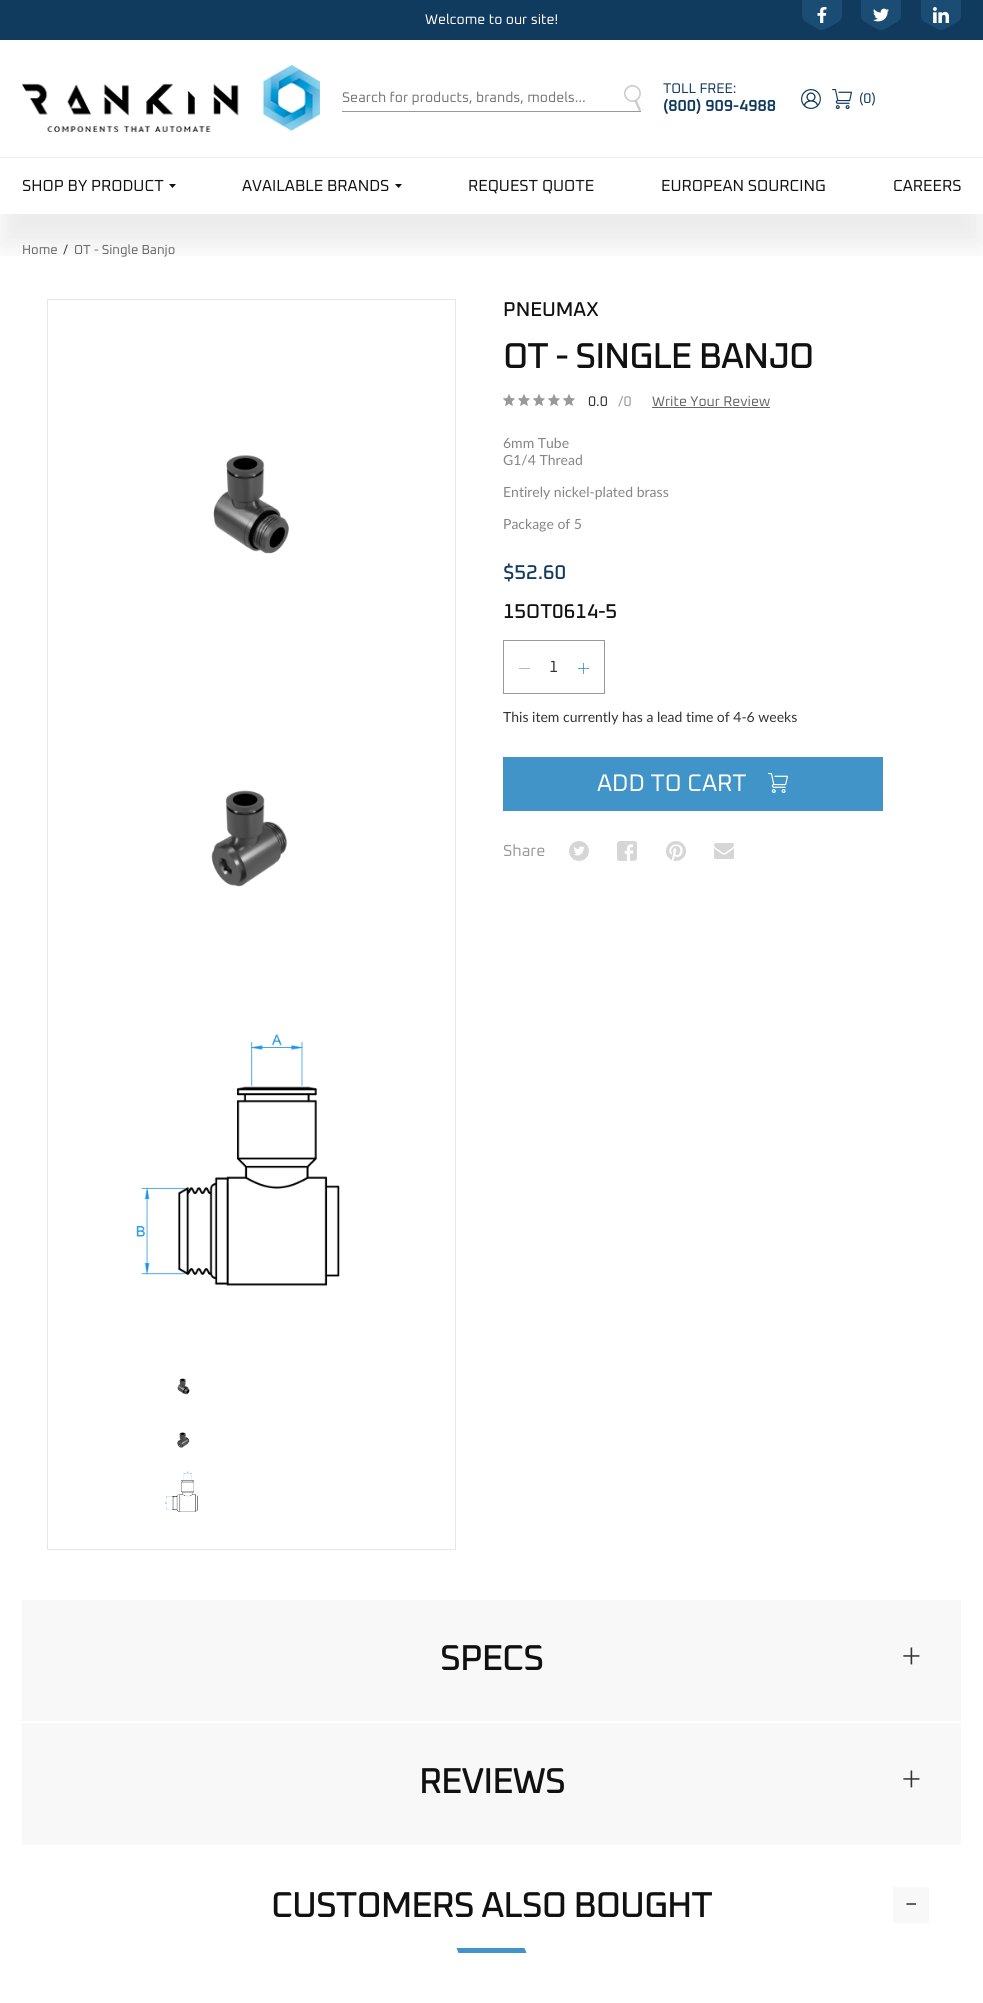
#include <cairo.h>
#include <math.h>
#include <stddef.h>


static void set_color(cairo_t *cr, unsigned color) {
    cairo_set_source_rgb(cr, (color >> 16) / 255.0, (color >> 8 & 255) / 255.0, (color & 255) / 255.0);
}

static void draw_text(cairo_t *cr, double x, double y, const char *s, const char *family, double size, int italic, int bold, unsigned color) {
    cairo_select_font_face(cr, family, italic ? CAIRO_FONT_SLANT_ITALIC : CAIRO_FONT_SLANT_NORMAL,
        bold ? CAIRO_FONT_WEIGHT_BOLD : CAIRO_FONT_WEIGHT_NORMAL);
    cairo_set_font_size(cr, size);
    set_color(cr, color);
    cairo_move_to(cr, x, y);
    cairo_show_text(cr, s);
}

static void draw_spaced(cairo_t *cr, double x, double y, const char *s, double letter, double word) {
    cairo_move_to(cr, x, y);
    while (*s) {
        char ch[5] = {0};
        int n = 0;
        do ch[n++] = *s++; while ((*s & 0xC0) == 0x80);
        cairo_show_text(cr, ch);
        cairo_rel_move_to(cr, letter + word * (*ch == ' '), 0);
    }
}

static void fill_rect(cairo_t *cr, double x, double y, double w, double h, unsigned color) {
    set_color(cr, color);
    cairo_rectangle(cr, x, y, w, h);
    cairo_fill(cr);
}

static void rounded_rect(cairo_t *cr, double x, double y, double w, double h, double r) {
    cairo_new_sub_path(cr);
    cairo_arc(cr, x + w - r, y + h - r, r, 0, M_PI / 2);
    cairo_arc(cr, x + r, y + h - r, r, M_PI / 2, M_PI);
    cairo_arc(cr, x + r, y + r, r, M_PI, 1.5 * M_PI);
    cairo_arc(cr, x + w - r, y + r, r, 1.5 * M_PI, 2 * M_PI);
    cairo_close_path(cr);
}

static void draw_shadow(cairo_t *cr, double x, double y, double w, double h, double r, double blur, double alpha) {
    cairo_push_group_with_content(cr, CAIRO_CONTENT_ALPHA);
    cairo_set_operator(cr, CAIRO_OPERATOR_SOURCE);
    for (int i = 15; i >= -15 && fmin(w, h) + blur * i / 3 > 0; i -= 2) {
        double e = blur * i / 6;
        cairo_set_source_rgba(cr, 0, 0, 0, alpha * erfc((i - 1) / 8.5) / 2);
        rounded_rect(cr, x - e, y - e, w + 2 * e, h + 2 * e, fmax(0, fmin(r + e + blur * .6, fmin(w, h) / 2 + e)));
        cairo_fill(cr);
    }
    cairo_pattern_t *soft = cairo_pop_group(cr);
    cairo_mask(cr, soft);
    cairo_pattern_destroy(soft);
}

static void draw_image(cairo_t *cr, const char *path, double x, double y, double w, double h) {
    cairo_surface_t *image = cairo_image_surface_create_from_png(path);
    cairo_save(cr);
    cairo_set_source_surface(cr, image, x, y);
    cairo_rectangle(cr, x, y, w, h);
    cairo_fill(cr);
    cairo_restore(cr);
    cairo_surface_destroy(image);
}

int main(void) {
    cairo_surface_t *surface = cairo_image_surface_create(CAIRO_FORMAT_RGB24, 983, 2003);
    cairo_t *cr = cairo_create(surface);
    cairo_font_options_t *options = cairo_font_options_create();
    cairo_font_options_set_hint_metrics(options, CAIRO_HINT_METRICS_OFF);
    cairo_font_options_set_hint_style(options, CAIRO_HINT_STYLE_NONE);
    cairo_set_font_options(cr, options);
    cairo_set_miter_limit(cr, 4);
    set_color(cr, 0xFFFFFF);
    cairo_paint(cr);
    fill_rect(cr, 0, 157, 983, 1, 0xF0F0F0);
    fill_rect(cr, 0, 0, 983, 40, 0x113A5F);
    draw_text(cr, 425, 24, "Welcome to our site!", "Oxanium", 14, 0, 0, 0xFFFFFF);
    cairo_save(cr);
    cairo_rectangle(cr, 802, 0, 40, 30);
    cairo_clip(cr);
    set_color(cr, 0x1A4C74);
    cairo_new_path(cr);
    cairo_move_to(cr, 802, 0);
    cairo_line_to(cr, 802, 16);
    cairo_curve_to(cr, 802, 18, 803.5, 20.5, 805, 21.5);
    cairo_line_to(cr, 819, 29.5);
    cairo_curve_to(cr, 820.5, 30.5, 823.5, 30.5, 825, 29.5);
    cairo_line_to(cr, 839, 21.5);
    cairo_curve_to(cr, 840.5, 20.5, 842, 18, 842, 16);
    cairo_line_to(cr, 842, 0);
    cairo_close_path(cr);
    cairo_fill(cr);
    cairo_restore(cr);
    draw_image(cr, "assets/img1.png", 817, 7, 10, 16);
    cairo_save(cr);
    cairo_rectangle(cr, 861, 0, 40, 30);
    cairo_clip(cr);
    set_color(cr, 0x1A4C74);
    cairo_new_path(cr);
    cairo_move_to(cr, 861, 0);
    cairo_line_to(cr, 861, 16);
    cairo_curve_to(cr, 861, 18, 862.5, 20.5, 864, 21.5);
    cairo_line_to(cr, 878, 29.5);
    cairo_curve_to(cr, 879.5, 30.5, 882.5, 30.5, 884, 29.5);
    cairo_line_to(cr, 898, 21.5);
    cairo_curve_to(cr, 899.5, 20.5, 901, 18, 901, 16);
    cairo_line_to(cr, 901, 0);
    cairo_close_path(cr);
    cairo_fill(cr);
    cairo_restore(cr);
    draw_image(cr, "assets/img2.png", 873, 8, 16, 14);
    cairo_save(cr);
    cairo_rectangle(cr, 921, 0, 40, 30);
    cairo_clip(cr);
    set_color(cr, 0x1A4C74);
    cairo_new_path(cr);
    cairo_move_to(cr, 921, 0);
    cairo_line_to(cr, 921, 16);
    cairo_curve_to(cr, 921, 18, 922.5, 20.5, 924, 21.5);
    cairo_line_to(cr, 938, 29.5);
    cairo_curve_to(cr, 939.5, 30.5, 942.5, 30.5, 944, 29.5);
    cairo_line_to(cr, 958, 21.5);
    cairo_curve_to(cr, 959.5, 20.5, 961, 18, 961, 16);
    cairo_line_to(cr, 961, 0);
    cairo_close_path(cr);
    cairo_fill(cr);
    cairo_restore(cr);
    draw_image(cr, "assets/img3.png", 933, 7, 16, 16);
    draw_image(cr, "assets/img4.png", 22, 65, 298, 67);
    fill_rect(cr, 342, 111, 299, 1, 0x999999);
    draw_text(cr, 342, 102, "Search for products, brands, models…", "Oxanium", 14, 0, 0, 0x757575);
    draw_image(cr, "assets/img5.png", 624, 85, 17, 26);
    draw_text(cr, 663, 93, "TOLL FREE:", "Oxanium", 14, 0, 0, 0x113A5F);
    draw_text(cr, 663, 111, "(800) 909-4988", "Oxanium SemiBold", 16, 0, 0, 0x113A5F);
    draw_image(cr, "assets/img6.png", 801, 89, 20, 20);
    draw_image(cr, "assets/img7.png", 832, 89, 20, 20);
    draw_text(cr, 859, 103, "(0)", "Oxanium", 14, 0, 0, 0x113A5F);
    cairo_save(cr);
    cairo_rectangle(cr, 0, 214, 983, 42);
    cairo_clip(cr);
    set_color(cr, 0x000000);
    draw_shadow(cr, 0, 190, 983, 56, 0, 15, 0.08);
    cairo_restore(cr);
    draw_text(cr, 22, 191, "SHOP BY PRODUCT", "Oxanium", 16, 0, 0, 0x111111);
    cairo_new_path(cr);
    cairo_move_to(cr, 169, 184);
    cairo_line_to(cr, 176, 184);
    cairo_line_to(cr, 172.5, 188);
    cairo_close_path(cr);
    cairo_fill(cr);
    draw_text(cr, 242, 191, "AVAILABLE BRANDS", "Oxanium", 16, 0, 0, 0x111111);
    cairo_new_path(cr);
    cairo_move_to(cr, 395, 184);
    cairo_line_to(cr, 402, 184);
    cairo_line_to(cr, 398.5, 188);
    cairo_close_path(cr);
    cairo_fill(cr);
    draw_text(cr, 468, 191, "REQUEST QUOTE", "Oxanium", 16, 0, 0, 0x111111);
    draw_text(cr, 661, 191, "EUROPEAN SOURCING", "Oxanium", 16, 0, 0, 0x111111);
    draw_text(cr, 893, 191, "CAREERS", "Oxanium", 16, 0, 0, 0x111111);
    draw_text(cr, 22, 254, "Home", "Oxanium", 13, 0, 0, 0x666666);
    draw_text(cr, 63, 254, "/", "Oxanium", 13, 0, 0, 0x333333);
    draw_text(cr, 74, 254, "OT - Single Banjo", "Oxanium", 13, 0, 0, 0x666666);
    cairo_rectangle(cr, 47.5, 299.5, 408, 1250);
    set_color(cr, 0xE6E6E6);
    cairo_set_line_width(cr, 1);
    cairo_stroke(cr);
    draw_image(cr, "assets/img8.png", 213, 455, 76, 99);
    draw_image(cr, "assets/img9.png", 211, 790, 77, 97);
    draw_image(cr, "assets/img10.png", 136, 1034, 204, 252);
    draw_image(cr, "assets/img11.png", 177, 1378, 13, 17);
    draw_image(cr, "assets/img12.png", 177, 1432, 13, 16);
    draw_image(cr, "assets/img13.png", 165, 1471, 33, 41);
    draw_text(cr, 503, 316, "PNEUMAX", "Oxanium Medium", 20, 0, 0, 0x111111);
    cairo_set_font_size(cr, 36);
    draw_spaced(cr, 503, 368, "OT - SINGLE BANJO", -1, 0);
    draw_image(cr, "assets/img14.png", 503, 394, 12, 12);
    draw_image(cr, "assets/img14.png", 518, 394, 12, 12);
    draw_image(cr, "assets/img14.png", 533, 394, 12, 12);
    draw_image(cr, "assets/img14.png", 548, 394, 12, 12);
    draw_image(cr, "assets/img14.png", 563, 394, 12, 12);
    draw_text(cr, 588, 406, "0.0", "Oxanium", 14, 0, 0, 0x333333);
    draw_text(cr, 618, 406, "/0", "Oxanium", 14, 0, 0, 0x999999);
    draw_text(cr, 652, 406, "Write Your Review", "Oxanium", 14, 0, 0, 0x666666);
    fill_rect(cr, 652, 407, 118, 1, 0x666666);
    draw_text(cr, 503, 448, "6mm Tube", "Lato", 14, 0, 0, 0x858585);
    draw_text(cr, 503, 465, "G1/4 Thread", "Lato", 14, 0, 0, 0x858585);
    draw_text(cr, 503, 497, "Entirely nickel-plated brass", "Lato", 14, 0, 0, 0x858585);
    draw_text(cr, 503, 529, "Package of 5", "Lato", 14, 0, 0, 0x858585);
    draw_text(cr, 503, 579, "$52.60", "Oxanium Medium", 20, 0, 0, 0x113A5F);
    draw_text(cr, 503, 618, "15OT0614-5", "Oxanium Medium", 20, 0, 0, 0x111111);
    fill_rect(cr, 503, 640, 102, 1, 0x999999);
    fill_rect(cr, 503, 693, 60, 1, 0x999999);
    fill_rect(cr, 503, 640, 1, 54, 0x999999);
    fill_rect(cr, 519, 668, 11, 1, 0xBBBBBB);
    draw_text(cr, 549, 672, "1", "Oxanium", 16, 0, 0, 0x333333);
    fill_rect(cr, 604, 640, 1, 54, 0x999999);
    fill_rect(cr, 563, 693, 42, 1, 0x999999);
    draw_image(cr, "assets/img15.png", 578, 663, 11, 11);
    draw_text(cr, 503, 722, "This item currently has a lead time of 4-6 weeks", "Lato", 14, 0, 0, 0x333333);
    fill_rect(cr, 503, 757, 380, 54, 0x4094C8);
    draw_text(cr, 597, 791, "ADD TO CART", "Oxanium", 24, 0, 0, 0xFFFFFF);
    draw_image(cr, "assets/img16.png", 768, 773, 20, 20);
    draw_text(cr, 503, 856, "Share", "Oxanium", 16, 0, 0, 0x999999);
    draw_image(cr, "assets/img17.png", 569, 841, 20, 20);
    draw_image(cr, "assets/img18.png", 617, 841, 20, 20);
    draw_image(cr, "assets/img19.png", 666, 841, 20, 20);
    draw_image(cr, "assets/img20.png", 714, 843, 20, 16);
    fill_rect(cr, 22, 1600, 939, 121, 0xF8F8F8);
    cairo_select_font_face(cr, "Oxanium Medium", CAIRO_FONT_SLANT_NORMAL, CAIRO_FONT_WEIGHT_NORMAL);
    cairo_set_font_size(cr, 36);
    set_color(cr, 0x111111);
    draw_spaced(cr, 440, 1670, "SPECS", -1, 0);
    draw_text(cr, 901, 1668, "+", "Oxanium ExtraLight", 36, 0, 0, 0x333333);
    fill_rect(cr, 22, 1723, 939, 122, 0xF8F8F8);
    cairo_select_font_face(cr, "Oxanium Medium", CAIRO_FONT_SLANT_NORMAL, CAIRO_FONT_WEIGHT_NORMAL);
    set_color(cr, 0x111111);
    draw_spaced(cr, 419, 1793, "REVIEWS", -1, 0);
    draw_text(cr, 901, 1791, "+", "Oxanium ExtraLight", 36, 0, 0, 0x333333);
    cairo_select_font_face(cr, "Oxanium Medium", CAIRO_FONT_SLANT_NORMAL, CAIRO_FONT_WEIGHT_NORMAL);
    set_color(cr, 0x111111);
    draw_spaced(cr, 271, 1917, "CUSTOMERS ALSO BOUGHT", -1, 0);
    fill_rect(cr, 893, 1887, 36, 36, 0xF8F8F8);
    draw_text(cr, 905, 1915, "-", "Oxanium ExtraLight", 36, 0, 0, 0x333333);
    fill_rect(cr, 460, 1948, 64, 5, 0x4094C8);
    cairo_new_path(cr);
    cairo_move_to(cr, 456.5, 1948);
    cairo_line_to(cr, 461.5, 1948);
    cairo_line_to(cr, 463.5, 1953);
    cairo_line_to(cr, 458.5, 1953);
    cairo_close_path(cr);
    cairo_fill(cr);
    cairo_new_path(cr);
    cairo_move_to(cr, 519.5, 1948);
    cairo_line_to(cr, 524.5, 1948);
    cairo_line_to(cr, 526.5, 1953);
    cairo_line_to(cr, 521.5, 1953);
    cairo_close_path(cr);
    cairo_fill(cr);
    cairo_surface_write_to_png(surface, "output.png");
    cairo_font_options_destroy(options);
    cairo_destroy(cr);
    cairo_surface_destroy(surface);
    return 0;
}
